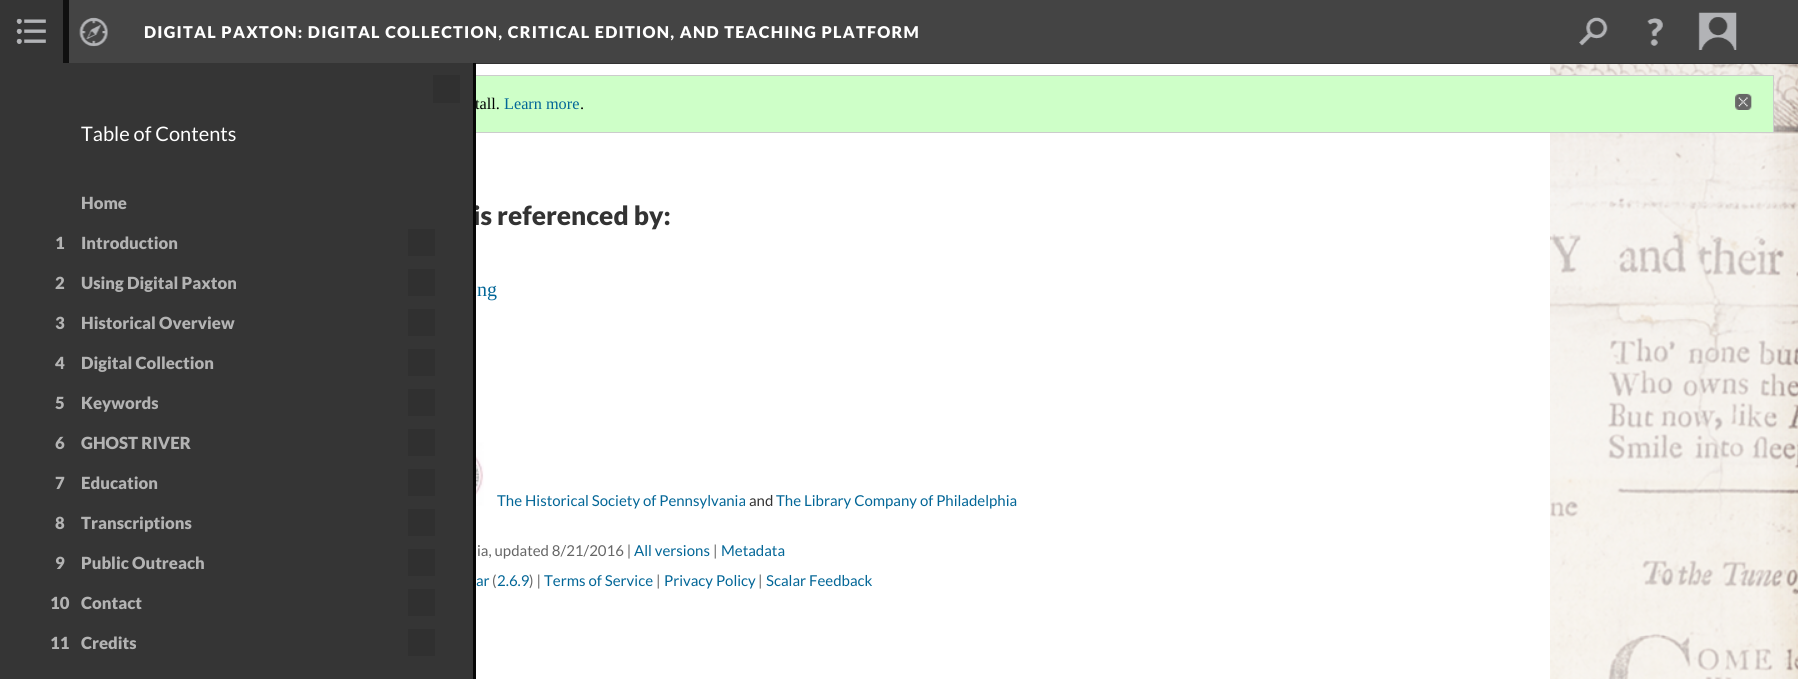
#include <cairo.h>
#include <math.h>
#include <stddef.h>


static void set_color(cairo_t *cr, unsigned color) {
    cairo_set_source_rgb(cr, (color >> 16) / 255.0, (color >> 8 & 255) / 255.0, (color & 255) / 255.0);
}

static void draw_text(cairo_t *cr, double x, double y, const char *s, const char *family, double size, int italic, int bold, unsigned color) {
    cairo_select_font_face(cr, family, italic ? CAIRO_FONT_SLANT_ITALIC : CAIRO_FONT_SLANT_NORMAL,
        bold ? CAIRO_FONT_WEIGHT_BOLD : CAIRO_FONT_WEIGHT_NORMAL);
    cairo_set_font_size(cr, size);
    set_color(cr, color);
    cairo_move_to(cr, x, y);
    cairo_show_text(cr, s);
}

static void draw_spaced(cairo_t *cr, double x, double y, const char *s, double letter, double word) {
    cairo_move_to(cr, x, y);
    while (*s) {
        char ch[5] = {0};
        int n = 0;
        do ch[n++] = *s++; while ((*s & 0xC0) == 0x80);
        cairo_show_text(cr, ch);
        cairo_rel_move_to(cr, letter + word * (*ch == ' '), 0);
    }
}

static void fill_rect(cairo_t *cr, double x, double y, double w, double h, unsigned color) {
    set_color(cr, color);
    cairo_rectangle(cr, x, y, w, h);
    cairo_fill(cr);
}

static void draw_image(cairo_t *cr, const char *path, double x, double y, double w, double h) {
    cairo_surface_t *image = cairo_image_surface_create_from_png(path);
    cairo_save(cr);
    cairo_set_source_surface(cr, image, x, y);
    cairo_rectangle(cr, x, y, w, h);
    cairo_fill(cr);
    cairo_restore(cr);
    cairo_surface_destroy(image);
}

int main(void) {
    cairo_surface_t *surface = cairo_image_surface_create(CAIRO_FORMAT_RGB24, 1798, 679);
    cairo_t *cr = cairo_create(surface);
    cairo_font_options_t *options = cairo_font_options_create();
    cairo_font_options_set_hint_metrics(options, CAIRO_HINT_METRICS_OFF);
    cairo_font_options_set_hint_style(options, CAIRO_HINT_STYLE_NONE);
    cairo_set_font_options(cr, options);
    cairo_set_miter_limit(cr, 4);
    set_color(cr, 0xFFFFFF);
    cairo_paint(cr);
    fill_rect(cr, 69, 0, 1729, 63, 0x444444);
    fill_rect(cr, 476, 63, 1322, 1, 0x333333);
    cairo_select_font_face(cr, "Lato Black", CAIRO_FONT_SLANT_NORMAL, CAIRO_FONT_WEIGHT_NORMAL);
    cairo_set_font_size(cr, 16.25);
    set_color(cr, 0xFFFFFF);
    draw_spaced(cr, 144, 38, "DIGITAL PAXTON: DIGITAL COLLECTION, CRITICAL EDITION, AND TEACHING PLATFORM", 1.25, 0);
    draw_image(cr, "assets/img1.png", 1579, 17, 29, 29);
    draw_image(cr, "assets/img2.png", 1647, 18, 16, 28);
    draw_image(cr, "assets/img3.png", 1698, 12, 39, 38);
    draw_image(cr, "assets/img4.png", 79, 17, 29, 30);
    fill_rect(cr, 0, 0, 63, 63, 0x353535);
    draw_image(cr, "assets/img5.png", 16, 18, 30, 26);
    cairo_rectangle(cr, -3, -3, 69, 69);
    set_color(cr, 0x101010);
    cairo_set_line_width(cr, 6);
    cairo_stroke(cr);
    draw_image(cr, "assets/img6.png", 1550, 64, 248, 615);
    draw_image(cr, "assets/img7.png", 1550, 64, 248, 615);
    fill_rect(cr, 476, 76, 1297, 56, 0xCEFFC8);
    cairo_rectangle(cr, 13.5, 75.5, 1760, 57);
    set_color(cr, 0xCCCCCC);
    cairo_set_line_width(cr, 1);
    cairo_stroke(cr);
    fill_rect(cr, 0, 63, 473, 616, 0x353535);
    draw_text(cr, 475, 109, "tall.", "Liberation Serif", 16.25, 0, 0, 0x000000);
    draw_text(cr, 473, 225, "is referenced by:", "Lato Black", 26.25, 0, 0, 0x333333);
    fill_rect(cr, 473, 63, 3, 616, 0x070707);
    fill_rect(cr, 433, 75, 27, 28, 0x303030);
    draw_text(cr, 81, 141, "Table of Contents", "Lato", 20, 0, 0, 0xFFFFFF);
    draw_text(cr, 81, 209, "Home", "Lato Black", 16.75, 0, 0, 0xB3B3B3);
    draw_text(cr, 55, 249, "1", "Lato Black", 16.75, 0, 0, 0xB3B3B3);
    draw_text(cr, 81, 249, "Introduction", "Lato Black", 16.75, 0, 0, 0xB3B3B3);
    fill_rect(cr, 408, 229, 27, 27, 0x303030);
    draw_text(cr, 55, 289, "2", "Lato Black", 16.75, 0, 0, 0xB3B3B3);
    draw_text(cr, 81, 289, "Using Digital Paxton", "Lato Black", 16.75, 0, 0, 0xB3B3B3);
    fill_rect(cr, 408, 269, 27, 27, 0x303030);
    draw_text(cr, 55, 329, "3", "Lato Black", 16.75, 0, 0, 0xB3B3B3);
    draw_text(cr, 81, 329, "Historical Overview", "Lato Black", 16.75, 0, 0, 0xB3B3B3);
    fill_rect(cr, 408, 309, 27, 27, 0x303030);
    draw_text(cr, 55, 369, "4", "Lato Black", 16.75, 0, 0, 0xB3B3B3);
    draw_text(cr, 81, 369, "Digital Collection", "Lato Black", 16.75, 0, 0, 0xB3B3B3);
    fill_rect(cr, 408, 349, 27, 27, 0x303030);
    draw_text(cr, 55, 409, "5", "Lato Black", 16.75, 0, 0, 0xB3B3B3);
    draw_text(cr, 81, 409, "Keywords", "Lato Black", 16.75, 0, 0, 0xB3B3B3);
    fill_rect(cr, 408, 389, 27, 27, 0x303030);
    draw_text(cr, 55, 449, "6", "Lato Black", 16.75, 0, 0, 0xB3B3B3);
    draw_text(cr, 81, 449, "GHOST RIVER", "Lato Black", 16.75, 0, 0, 0xB3B3B3);
    fill_rect(cr, 408, 429, 27, 27, 0x303030);
    draw_text(cr, 55, 489, "7", "Lato Black", 16.75, 0, 0, 0xB3B3B3);
    draw_text(cr, 81, 489, "Education", "Lato Black", 16.75, 0, 0, 0xB3B3B3);
    fill_rect(cr, 408, 469, 27, 27, 0x303030);
    draw_text(cr, 55, 529, "8", "Lato Black", 16.75, 0, 0, 0xB3B3B3);
    draw_text(cr, 81, 529, "Transcriptions", "Lato Black", 16.75, 0, 0, 0xB3B3B3);
    fill_rect(cr, 408, 509, 27, 27, 0x303030);
    draw_text(cr, 55, 569, "9", "Lato Black", 16.75, 0, 0, 0xB3B3B3);
    draw_text(cr, 81, 569, "Public Outreach", "Lato Black", 16.75, 0, 0, 0xB3B3B3);
    fill_rect(cr, 408, 549, 27, 27, 0x303030);
    draw_text(cr, 50, 609, "10", "Lato Black", 16.75, 0, 0, 0xB3B3B3);
    draw_text(cr, 81, 609, "Contact", "Lato Black", 16.75, 0, 0, 0xB3B3B3);
    fill_rect(cr, 408, 589, 27, 27, 0x303030);
    draw_text(cr, 50, 649, "11", "Lato Black", 16.75, 0, 0, 0xB3B3B3);
    draw_text(cr, 81, 649, "Credits", "Lato Black", 16.75, 0, 0, 0xB3B3B3);
    fill_rect(cr, 408, 629, 27, 27, 0x303030);
    draw_text(cr, 504, 109, "Learn more", "Liberation Serif", 16.25, 0, 0, 0x026697);
    draw_text(cr, 580, 109, ".", "Liberation Serif", 16.25, 0, 0, 0x000000);
    draw_image(cr, "assets/img8.png", 1735, 93, 17, 17);
    draw_text(cr, 477, 296, "ng", "Liberation Serif", 20, 0, 0, 0x026697);
    draw_image(cr, "assets/img9.png", 476, 442, 8, 64);
    draw_text(cr, 497, 506, "The Historical Society of Pennsylvania", "Lato", 15, 0, 0, 0x026697);
    draw_text(cr, 749, 506, "and", "Lato", 15, 0, 0, 0x333333);
    draw_text(cr, 776, 506, "The Library Company of Philadelphia", "Lato", 15, 0, 0, 0x026697);
    draw_text(cr, 477, 556, "ia, updated 8/21/2016 |", "Lato", 15, 0, 0, 0x666666);
    draw_text(cr, 634, 556, "All versions", "Lato", 15, 0, 0, 0x026697);
    draw_text(cr, 713, 556, "|", "Lato", 15, 0, 0, 0x666666);
    draw_text(cr, 721, 556, "Metadata", "Lato", 15, 0, 0, 0x026697);
    draw_text(cr, 476, 586, "ar", "Lato", 15, 0, 0, 0x026697);
    draw_text(cr, 492, 586, "(", "Lato", 15, 0, 0, 0x666666);
    draw_text(cr, 497, 586, "2.6.9", "Lato", 15, 0, 0, 0x026697);
    draw_text(cr, 529, 586, ") |", "Lato", 15, 0, 0, 0x666666);
    draw_text(cr, 544, 586, "Terms of Service", "Lato", 15, 0, 0, 0x026697);
    draw_text(cr, 656, 586, "|", "Lato", 15, 0, 0, 0x666666);
    draw_text(cr, 664, 586, "Privacy Policy", "Lato", 15, 0, 0, 0x026697);
    draw_text(cr, 758, 586, "|", "Lato", 15, 0, 0, 0x666666);
    draw_text(cr, 766, 586, "Scalar Feedback", "Lato", 15, 0, 0, 0x026697);
    cairo_surface_write_to_png(surface, "output.png");
    cairo_font_options_destroy(options);
    cairo_destroy(cr);
    cairo_surface_destroy(surface);
    return 0;
}
